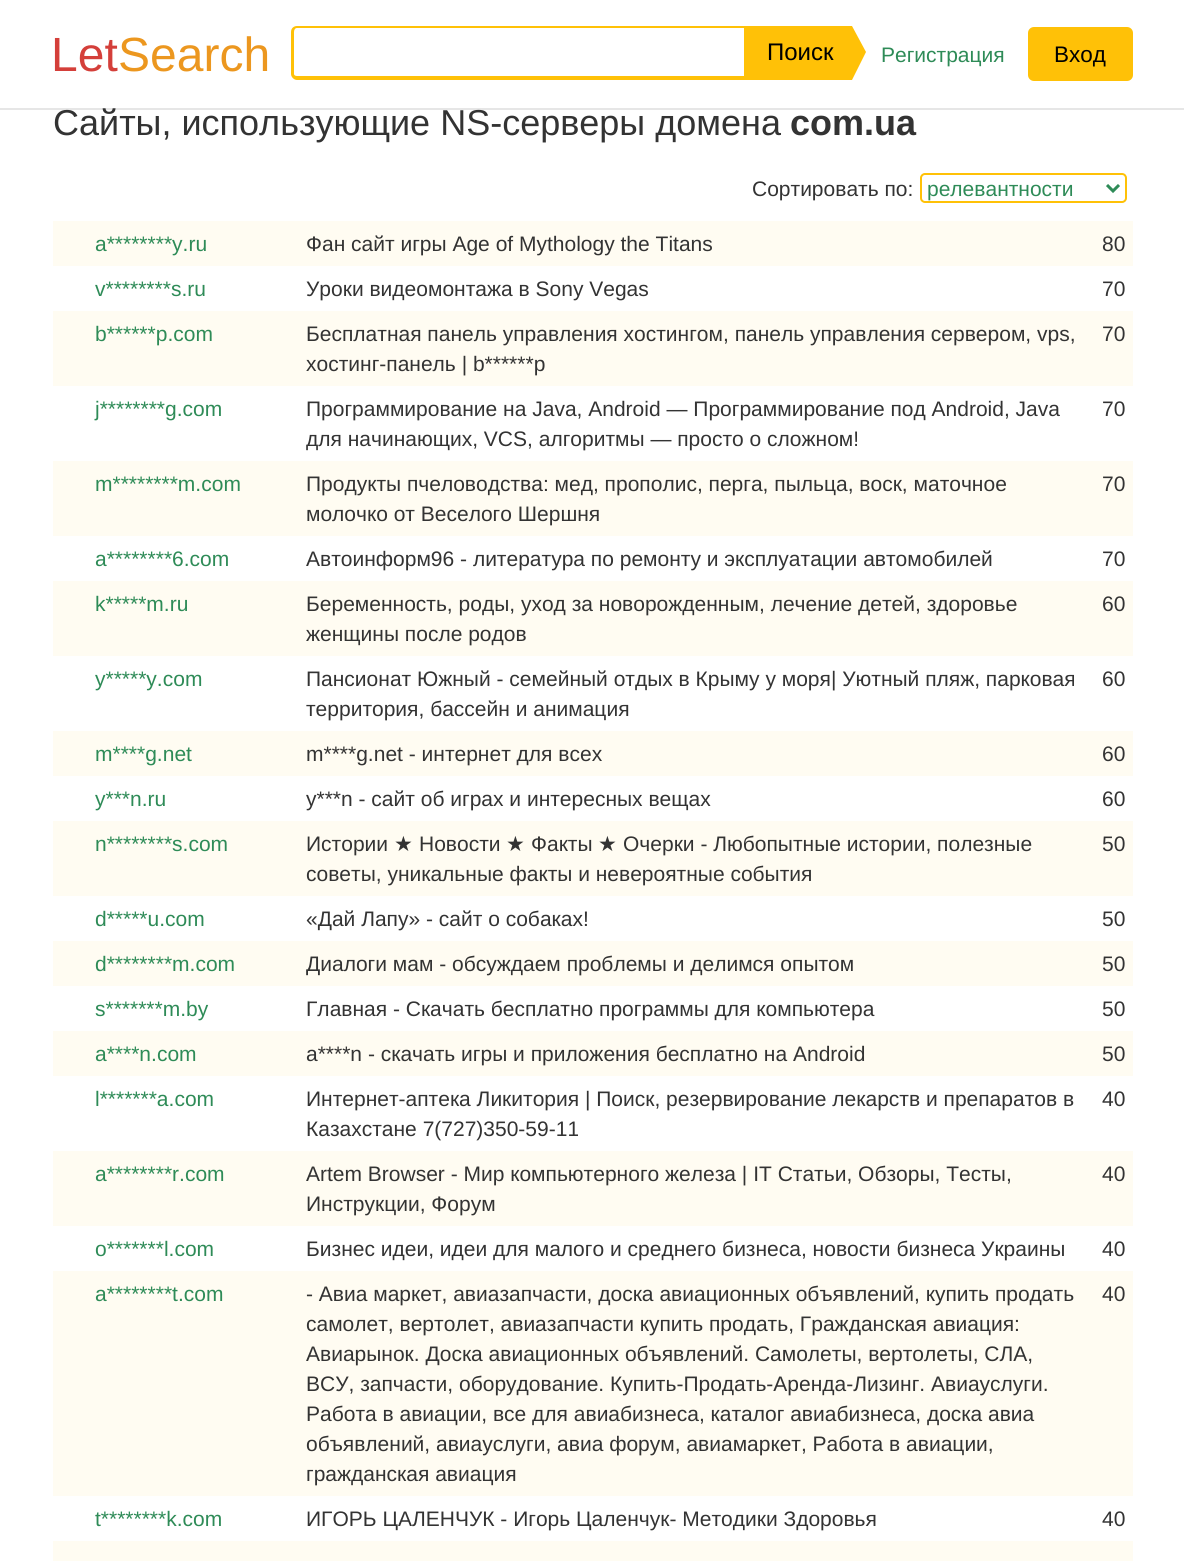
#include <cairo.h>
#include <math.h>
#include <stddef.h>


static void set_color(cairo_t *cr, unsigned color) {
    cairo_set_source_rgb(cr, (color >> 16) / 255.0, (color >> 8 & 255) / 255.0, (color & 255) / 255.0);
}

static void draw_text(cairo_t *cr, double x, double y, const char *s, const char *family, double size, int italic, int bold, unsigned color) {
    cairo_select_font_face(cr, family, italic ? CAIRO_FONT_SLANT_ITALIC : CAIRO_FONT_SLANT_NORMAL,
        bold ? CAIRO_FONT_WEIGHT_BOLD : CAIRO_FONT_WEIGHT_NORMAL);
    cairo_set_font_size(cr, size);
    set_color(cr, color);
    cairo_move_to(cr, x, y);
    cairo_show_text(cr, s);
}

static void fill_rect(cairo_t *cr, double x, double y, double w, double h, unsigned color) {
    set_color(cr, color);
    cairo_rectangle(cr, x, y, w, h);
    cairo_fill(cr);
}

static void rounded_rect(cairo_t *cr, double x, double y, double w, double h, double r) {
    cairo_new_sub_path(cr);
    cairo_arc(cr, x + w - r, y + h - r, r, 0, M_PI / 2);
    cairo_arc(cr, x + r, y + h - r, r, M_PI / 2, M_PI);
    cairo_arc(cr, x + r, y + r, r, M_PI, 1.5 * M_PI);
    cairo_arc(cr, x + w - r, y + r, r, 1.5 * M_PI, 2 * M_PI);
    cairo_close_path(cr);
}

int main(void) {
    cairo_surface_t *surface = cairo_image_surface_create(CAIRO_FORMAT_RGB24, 1184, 1561);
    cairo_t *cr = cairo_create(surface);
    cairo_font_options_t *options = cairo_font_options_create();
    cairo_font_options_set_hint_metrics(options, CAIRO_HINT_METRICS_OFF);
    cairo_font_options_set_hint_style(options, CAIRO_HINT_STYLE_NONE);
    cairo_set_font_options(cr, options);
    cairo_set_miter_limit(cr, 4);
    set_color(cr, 0xFFFFFF);
    cairo_paint(cr);
    cairo_set_source_rgba(cr, 0, 0, 0, 0.1);
    cairo_rectangle(cr, 0, 108, 1184, 2);
    cairo_fill(cr);
    draw_text(cr, 51, 71, "Let", "Liberation Sans", 48, 0, 0, 0xD43F3A);
    draw_text(cr, 118, 71, "Search", "Liberation Sans", 48, 0, 0, 0xEC971F);
    set_color(cr, 0xFFC107);
    cairo_set_fill_rule(cr, CAIRO_FILL_RULE_EVEN_ODD);
    cairo_new_path(cr);
    cairo_move_to(cr, 297, 26);
    cairo_line_to(cr, 744, 26);
    cairo_line_to(cr, 744, 80);
    cairo_line_to(cr, 297, 80);
    cairo_curve_to(cr, 294, 80, 291, 77, 291, 74);
    cairo_line_to(cr, 291, 32);
    cairo_curve_to(cr, 291, 28, 294, 26, 297, 26);
    cairo_close_path(cr);
    cairo_move_to(cr, 297, 28);
    cairo_line_to(cr, 744, 28);
    cairo_line_to(cr, 744, 76);
    cairo_line_to(cr, 297, 76);
    cairo_curve_to(cr, 295, 76, 294, 75, 294, 74);
    cairo_line_to(cr, 294, 32);
    cairo_curve_to(cr, 294, 30, 295, 28, 297, 28);
    cairo_close_path(cr);
    cairo_fill(cr);
    fill_rect(cr, 744, 26, 108, 54, 0xFFC107);
    draw_text(cr, 767, 60, "Поиск", "Liberation Sans", 24, 0, 0, 0x000000);
    set_color(cr, 0xFFC107);
    cairo_set_fill_rule(cr, CAIRO_FILL_RULE_WINDING);
    cairo_new_path(cr);
    cairo_move_to(cr, 852, 80);
    cairo_line_to(cr, 852, 26);
    cairo_line_to(cr, 866, 52);
    cairo_close_path(cr);
    cairo_fill(cr);
    draw_text(cr, 881, 62, "Регистрация", "Liberation Sans", 21, 0, 0, 0x2E8B57);
    set_color(cr, 0xFFC107);
    rounded_rect(cr, 1028, 27, 105, 54, 6);
    cairo_fill(cr);
    draw_text(cr, 1054, 62, "Вход", "Liberation Sans", 22.5, 0, 0, 0x000000);
    draw_text(cr, 53, 135, "Сайты, использующие NS-серверы домена", "Liberation Sans", 36, 0, 0, 0x333333);
    draw_text(cr, 790, 135, "com.ua", "Liberation Sans", 36, 0, 1, 0x333333);
    draw_text(cr, 752, 196, "Сортировать по:", "Liberation Sans", 21, 0, 0, 0x333333);
    rounded_rect(cr, 921, 174, 205, 28, 4);
    set_color(cr, 0xFFC107);
    cairo_stroke(cr);
    cairo_new_path(cr);
    cairo_move_to(cr, 1107, 185);
    cairo_line_to(cr, 1113, 191);
    cairo_line_to(cr, 1119, 185);
    set_color(cr, 0x2E8B57);
    cairo_set_line_width(cr, 3);
    cairo_stroke(cr);
    draw_text(cr, 927, 196, "релевантности", "Liberation Sans", 21, 0, 0, 0x2E8B57);
    fill_rect(cr, 53, 221, 1080, 45, 0xFFFCF2);
    draw_text(cr, 95, 251, "a********y.ru", "Liberation Sans", 21, 0, 0, 0x2E8B57);
    draw_text(cr, 306, 251, "Фан сайт игры Age of Mythology the Titans", "Liberation Sans", 21, 0, 0, 0x333333);
    draw_text(cr, 1102, 251, "80", "Liberation Sans", 21, 0, 0, 0x333333);
    draw_text(cr, 95, 296, "v********s.ru", "Liberation Sans", 21, 0, 0, 0x2E8B57);
    draw_text(cr, 306, 296, "Уроки видеомонтажа в Sony Vegas", "Liberation Sans", 21, 0, 0, 0x333333);
    draw_text(cr, 1102, 296, "70", "Liberation Sans", 21, 0, 0, 0x333333);
    fill_rect(cr, 53, 311, 1080, 75, 0xFFFCF2);
    draw_text(cr, 95, 341, "b******p.com", "Liberation Sans", 21, 0, 0, 0x2E8B57);
    draw_text(cr, 306, 341, "Бесплатная панель управления хостингом, панель управления сервером, vps,", "Liberation Sans", 21, 0, 0, 0x333333);
    draw_text(cr, 306, 371, "хостинг-панель | b******p", "Liberation Sans", 21, 0, 0, 0x333333);
    draw_text(cr, 1102, 341, "70", "Liberation Sans", 21, 0, 0, 0x333333);
    draw_text(cr, 95, 416, "j********g.com", "Liberation Sans", 21, 0, 0, 0x2E8B57);
    draw_text(cr, 306, 416, "Программирование на Java, Android — Программирование под Android, Java", "Liberation Sans", 21, 0, 0, 0x333333);
    draw_text(cr, 306, 446, "для начинающих, VCS, алгоритмы — просто о сложном!", "Liberation Sans", 21, 0, 0, 0x333333);
    draw_text(cr, 1102, 416, "70", "Liberation Sans", 21, 0, 0, 0x333333);
    fill_rect(cr, 53, 461, 1080, 75, 0xFFFCF2);
    draw_text(cr, 95, 491, "m********m.com", "Liberation Sans", 21, 0, 0, 0x2E8B57);
    draw_text(cr, 306, 491, "Продукты пчеловодства: мед, прополис, перга, пыльца, воск, маточное", "Liberation Sans", 21, 0, 0, 0x333333);
    draw_text(cr, 306, 521, "молочко от Веселого Шершня", "Liberation Sans", 21, 0, 0, 0x333333);
    draw_text(cr, 1102, 491, "70", "Liberation Sans", 21, 0, 0, 0x333333);
    draw_text(cr, 95, 566, "a********6.com", "Liberation Sans", 21, 0, 0, 0x2E8B57);
    draw_text(cr, 306, 566, "Автоинформ96 - литература по ремонту и эксплуатации автомобилей", "Liberation Sans", 21, 0, 0, 0x333333);
    draw_text(cr, 1102, 566, "70", "Liberation Sans", 21, 0, 0, 0x333333);
    fill_rect(cr, 53, 581, 1080, 75, 0xFFFCF2);
    draw_text(cr, 95, 611, "k*****m.ru", "Liberation Sans", 21, 0, 0, 0x2E8B57);
    draw_text(cr, 306, 611, "Беременность, роды, уход за новорожденным, лечение детей, здоровье", "Liberation Sans", 21, 0, 0, 0x333333);
    draw_text(cr, 306, 641, "женщины после родов", "Liberation Sans", 21, 0, 0, 0x333333);
    draw_text(cr, 1102, 611, "60", "Liberation Sans", 21, 0, 0, 0x333333);
    draw_text(cr, 95, 686, "y*****y.com", "Liberation Sans", 21, 0, 0, 0x2E8B57);
    draw_text(cr, 306, 686, "Пансионат Южный - семейный отдых в Крыму у моря| Уютный пляж, парковая", "Liberation Sans", 21, 0, 0, 0x333333);
    draw_text(cr, 306, 716, "территория, бассейн и анимация", "Liberation Sans", 21, 0, 0, 0x333333);
    draw_text(cr, 1102, 686, "60", "Liberation Sans", 21, 0, 0, 0x333333);
    fill_rect(cr, 53, 731, 1080, 45, 0xFFFCF2);
    draw_text(cr, 95, 761, "m****g.net", "Liberation Sans", 21, 0, 0, 0x2E8B57);
    draw_text(cr, 306, 761, "m****g.net - интернет для всех", "Liberation Sans", 21, 0, 0, 0x333333);
    draw_text(cr, 1102, 761, "60", "Liberation Sans", 21, 0, 0, 0x333333);
    draw_text(cr, 95, 806, "y***n.ru", "Liberation Sans", 21, 0, 0, 0x2E8B57);
    draw_text(cr, 306, 806, "y***n - сайт об играх и интересных вещах", "Liberation Sans", 21, 0, 0, 0x333333);
    draw_text(cr, 1102, 806, "60", "Liberation Sans", 21, 0, 0, 0x333333);
    fill_rect(cr, 53, 821, 1080, 75, 0xFFFCF2);
    draw_text(cr, 95, 851, "n********s.com", "Liberation Sans", 21, 0, 0, 0x2E8B57);
    draw_text(cr, 306, 851, "Истории", "Liberation Sans", 21, 0, 0, 0x333333);
    draw_text(cr, 394, 851, "★", "DejaVu Sans", 21, 0, 0, 0x333333);
    draw_text(cr, 419, 851, "Новости", "Liberation Sans", 21, 0, 0, 0x333333);
    draw_text(cr, 506, 851, "★", "DejaVu Sans", 21, 0, 0, 0x333333);
    draw_text(cr, 531, 851, "Факты", "Liberation Sans", 21, 0, 0, 0x333333);
    draw_text(cr, 598, 851, "★", "DejaVu Sans", 21, 0, 0, 0x333333);
    draw_text(cr, 623, 851, "Очерки - Любопытные истории, полезные", "Liberation Sans", 21, 0, 0, 0x333333);
    draw_text(cr, 306, 881, "советы, уникальные факты и невероятные события", "Liberation Sans", 21, 0, 0, 0x333333);
    draw_text(cr, 1102, 851, "50", "Liberation Sans", 21, 0, 0, 0x333333);
    draw_text(cr, 95, 926, "d*****u.com", "Liberation Sans", 21, 0, 0, 0x2E8B57);
    draw_text(cr, 306, 926, "«Дай Лапу» - сайт о собаках!", "Liberation Sans", 21, 0, 0, 0x333333);
    draw_text(cr, 1102, 926, "50", "Liberation Sans", 21, 0, 0, 0x333333);
    fill_rect(cr, 53, 941, 1080, 45, 0xFFFCF2);
    draw_text(cr, 95, 971, "d********m.com", "Liberation Sans", 21, 0, 0, 0x2E8B57);
    draw_text(cr, 306, 971, "Диалоги мам - обсуждаем проблемы и делимся опытом", "Liberation Sans", 21, 0, 0, 0x333333);
    draw_text(cr, 1102, 971, "50", "Liberation Sans", 21, 0, 0, 0x333333);
    draw_text(cr, 95, 1016, "s*******m.by", "Liberation Sans", 21, 0, 0, 0x2E8B57);
    draw_text(cr, 306, 1016, "Главная - Скачать бесплатно программы для компьютера", "Liberation Sans", 21, 0, 0, 0x333333);
    draw_text(cr, 1102, 1016, "50", "Liberation Sans", 21, 0, 0, 0x333333);
    fill_rect(cr, 53, 1031, 1080, 45, 0xFFFCF2);
    draw_text(cr, 95, 1061, "a****n.com", "Liberation Sans", 21, 0, 0, 0x2E8B57);
    draw_text(cr, 306, 1061, "a****n - скачать игры и приложения бесплатно на Android", "Liberation Sans", 21, 0, 0, 0x333333);
    draw_text(cr, 1102, 1061, "50", "Liberation Sans", 21, 0, 0, 0x333333);
    draw_text(cr, 95, 1106, "l*******a.com", "Liberation Sans", 21, 0, 0, 0x2E8B57);
    draw_text(cr, 306, 1106, "Интернет-аптека Ликитория | Поиск, резервирование лекарств и препаратов в", "Liberation Sans", 21, 0, 0, 0x333333);
    draw_text(cr, 306, 1136, "Казахстане 7(727)350-59-11", "Liberation Sans", 21, 0, 0, 0x333333);
    draw_text(cr, 1102, 1106, "40", "Liberation Sans", 21, 0, 0, 0x333333);
    fill_rect(cr, 53, 1151, 1080, 75, 0xFFFCF2);
    draw_text(cr, 95, 1181, "a********r.com", "Liberation Sans", 21, 0, 0, 0x2E8B57);
    draw_text(cr, 306, 1181, "Artem Browser - Мир компьютерного железа | IT Статьи, Обзоры, Тесты,", "Liberation Sans", 21, 0, 0, 0x333333);
    draw_text(cr, 306, 1211, "Инструкции, Форум", "Liberation Sans", 21, 0, 0, 0x333333);
    draw_text(cr, 1102, 1181, "40", "Liberation Sans", 21, 0, 0, 0x333333);
    draw_text(cr, 95, 1256, "o*******l.com", "Liberation Sans", 21, 0, 0, 0x2E8B57);
    draw_text(cr, 306, 1256, "Бизнес идеи, идеи для малого и среднего бизнеса, новости бизнеса Украины", "Liberation Sans", 21, 0, 0, 0x333333);
    draw_text(cr, 1102, 1256, "40", "Liberation Sans", 21, 0, 0, 0x333333);
    fill_rect(cr, 53, 1271, 1080, 225, 0xFFFCF2);
    draw_text(cr, 95, 1301, "a********t.com", "Liberation Sans", 21, 0, 0, 0x2E8B57);
    draw_text(cr, 306, 1301, "- Авиа маркет, авиазапчасти, доска авиационных объявлений, купить продать", "Liberation Sans", 21, 0, 0, 0x333333);
    draw_text(cr, 306, 1331, "самолет, вертолет, авиазапчасти купить продать, Гражданская авиация:", "Liberation Sans", 21, 0, 0, 0x333333);
    draw_text(cr, 306, 1361, "Авиарынок. Доска авиационных объявлений. Самолеты, вертолеты, СЛА,", "Liberation Sans", 21, 0, 0, 0x333333);
    draw_text(cr, 306, 1391, "ВСУ, запчасти, оборудование. Купить-Продать-Аренда-Лизинг. Авиауслуги.", "Liberation Sans", 21, 0, 0, 0x333333);
    draw_text(cr, 306, 1421, "Работа в авиации, все для авиабизнеса, каталог авиабизнеса, доска авиа", "Liberation Sans", 21, 0, 0, 0x333333);
    draw_text(cr, 306, 1451, "объявлений, авиауслуги, авиа форум, авиамаркет, Работа в авиации,", "Liberation Sans", 21, 0, 0, 0x333333);
    draw_text(cr, 306, 1481, "гражданская авиация", "Liberation Sans", 21, 0, 0, 0x333333);
    draw_text(cr, 1102, 1301, "40", "Liberation Sans", 21, 0, 0, 0x333333);
    draw_text(cr, 95, 1526, "t********k.com", "Liberation Sans", 21, 0, 0, 0x2E8B57);
    draw_text(cr, 306, 1526, "ИГОРЬ ЦАЛЕНЧУК - Игорь Цаленчук- Методики Здоровья", "Liberation Sans", 21, 0, 0, 0x333333);
    draw_text(cr, 1102, 1526, "40", "Liberation Sans", 21, 0, 0, 0x333333);
    fill_rect(cr, 53, 1541, 1080, 20, 0xFFFCF2);
    cairo_surface_write_to_png(surface, "output.png");
    cairo_font_options_destroy(options);
    cairo_destroy(cr);
    cairo_surface_destroy(surface);
    return 0;
}
